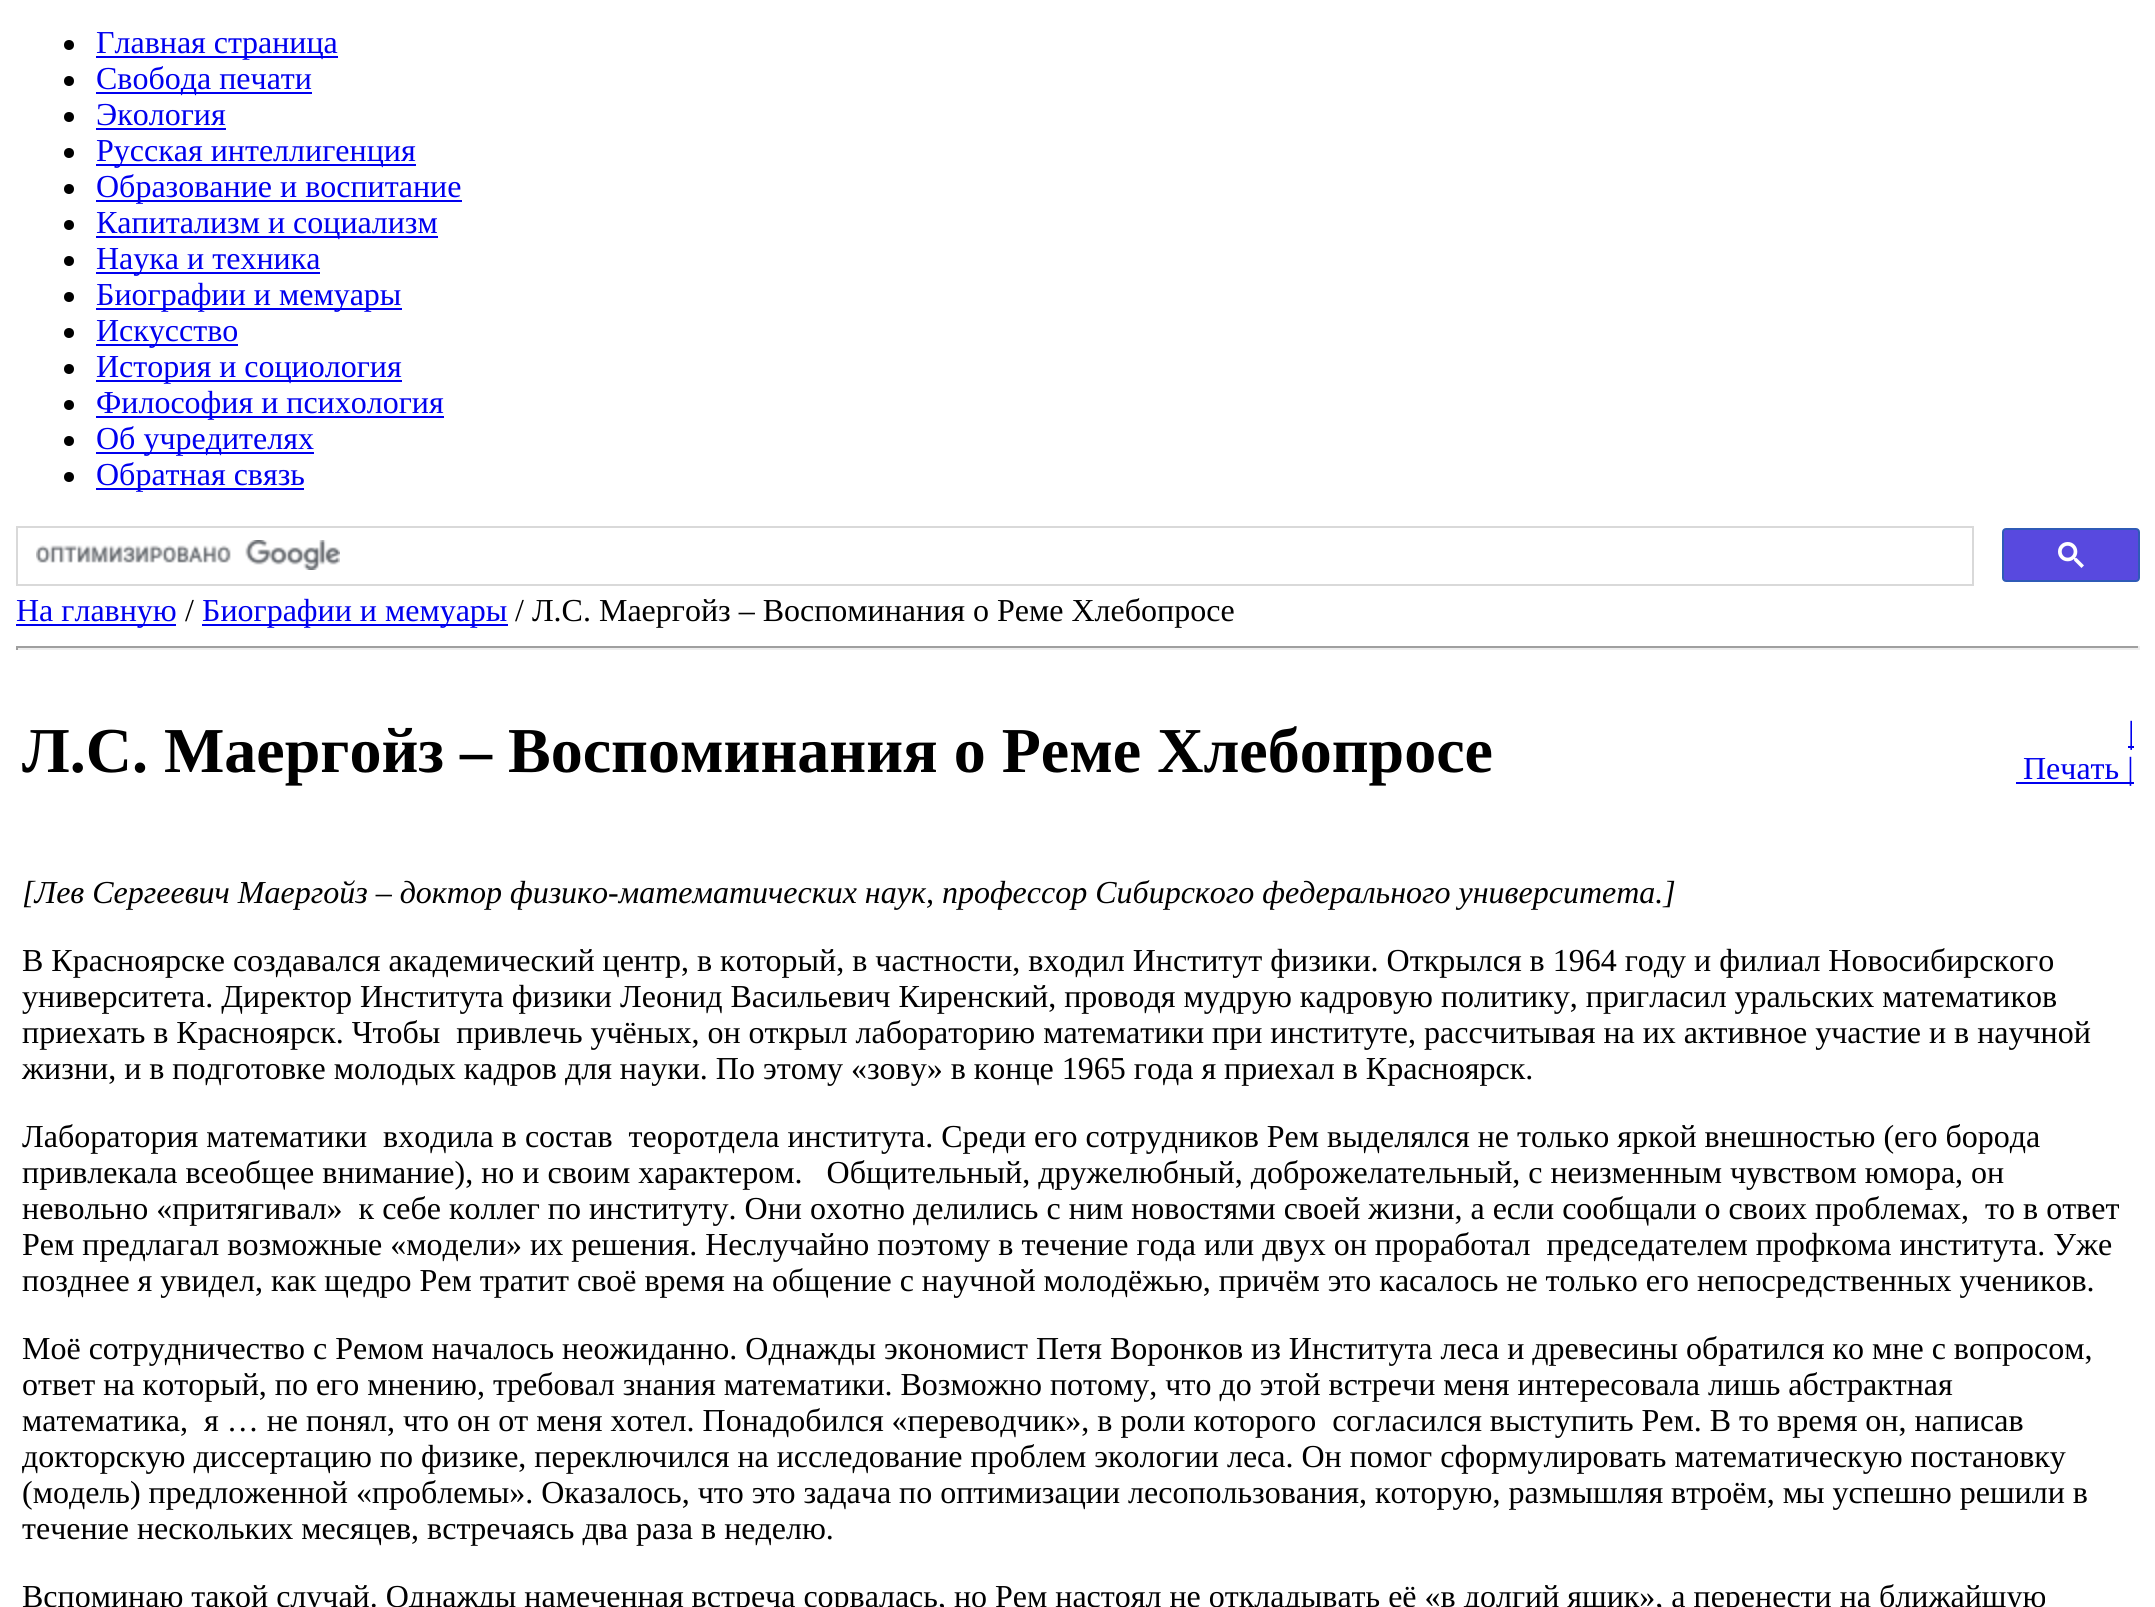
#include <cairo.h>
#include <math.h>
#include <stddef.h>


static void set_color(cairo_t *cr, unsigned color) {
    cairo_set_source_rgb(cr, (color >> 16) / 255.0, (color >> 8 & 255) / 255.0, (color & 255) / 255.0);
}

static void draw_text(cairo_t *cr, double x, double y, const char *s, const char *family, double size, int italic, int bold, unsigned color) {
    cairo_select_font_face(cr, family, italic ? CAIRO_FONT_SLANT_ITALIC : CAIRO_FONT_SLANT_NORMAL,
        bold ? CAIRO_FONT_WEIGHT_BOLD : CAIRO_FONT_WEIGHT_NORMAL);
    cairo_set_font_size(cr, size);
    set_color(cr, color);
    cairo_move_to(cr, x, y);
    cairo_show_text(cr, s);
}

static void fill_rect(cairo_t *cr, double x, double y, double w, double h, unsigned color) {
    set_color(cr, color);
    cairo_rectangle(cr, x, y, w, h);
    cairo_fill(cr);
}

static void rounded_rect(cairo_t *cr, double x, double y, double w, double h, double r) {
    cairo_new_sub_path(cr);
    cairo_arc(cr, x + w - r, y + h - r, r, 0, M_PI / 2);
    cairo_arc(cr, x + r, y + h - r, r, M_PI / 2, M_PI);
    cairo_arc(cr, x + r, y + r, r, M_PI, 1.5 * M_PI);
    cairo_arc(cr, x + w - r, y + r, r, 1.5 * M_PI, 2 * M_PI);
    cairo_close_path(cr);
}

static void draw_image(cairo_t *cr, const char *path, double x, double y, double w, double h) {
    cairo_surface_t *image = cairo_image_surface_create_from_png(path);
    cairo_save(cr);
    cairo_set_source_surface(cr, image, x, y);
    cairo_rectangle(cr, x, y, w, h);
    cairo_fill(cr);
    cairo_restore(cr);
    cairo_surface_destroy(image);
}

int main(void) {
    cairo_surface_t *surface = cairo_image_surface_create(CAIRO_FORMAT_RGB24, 2155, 1607);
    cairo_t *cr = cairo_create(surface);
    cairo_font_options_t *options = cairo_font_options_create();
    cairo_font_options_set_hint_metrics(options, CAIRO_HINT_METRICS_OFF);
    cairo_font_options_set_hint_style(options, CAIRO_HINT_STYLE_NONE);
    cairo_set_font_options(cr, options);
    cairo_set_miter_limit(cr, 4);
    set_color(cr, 0xFFFFFF);
    cairo_paint(cr);
    set_color(cr, 0x000000);
    cairo_arc(cr, 69, 45, 5, 0, 2 * M_PI);
    cairo_fill(cr);
    fill_rect(cr, 96, 56, 242, 2, 0x0000EE);
    draw_text(cr, 96, 53, "Главная страница", "Liberation Serif", 32, 0, 0, 0x0000EE);
    set_color(cr, 0x000000);
    cairo_new_path(cr);
    cairo_arc(cr, 69, 81, 5, 0, 2 * M_PI);
    cairo_fill(cr);
    fill_rect(cr, 96, 92, 216, 2, 0x0000EE);
    draw_text(cr, 96, 89, "Свобода печати", "Liberation Serif", 32, 0, 0, 0x0000EE);
    set_color(cr, 0x000000);
    cairo_new_path(cr);
    cairo_arc(cr, 69, 117, 5, 0, 2 * M_PI);
    cairo_fill(cr);
    draw_text(cr, 96, 125, "Экология", "Liberation Serif", 32, 0, 0, 0x0000EE);
    fill_rect(cr, 96, 128, 130, 2, 0x0000EE);
    set_color(cr, 0x000000);
    cairo_new_path(cr);
    cairo_arc(cr, 69, 153, 5, 0, 2 * M_PI);
    cairo_fill(cr);
    fill_rect(cr, 96, 164, 320, 2, 0x0000EE);
    draw_text(cr, 96, 161, "Русская интеллигенция", "Liberation Serif", 32, 0, 0, 0x0000EE);
    set_color(cr, 0x000000);
    cairo_new_path(cr);
    cairo_arc(cr, 69, 189, 5, 0, 2 * M_PI);
    cairo_fill(cr);
    fill_rect(cr, 96, 200, 366, 2, 0x0000EE);
    draw_text(cr, 96, 197, "Образование и воспитание", "Liberation Serif", 32, 0, 0, 0x0000EE);
    set_color(cr, 0x000000);
    cairo_new_path(cr);
    cairo_arc(cr, 69, 225, 5, 0, 2 * M_PI);
    cairo_fill(cr);
    fill_rect(cr, 96, 236, 342, 2, 0x0000EE);
    draw_text(cr, 96, 233, "Капитализм и социализм", "Liberation Serif", 32, 0, 0, 0x0000EE);
    set_color(cr, 0x000000);
    cairo_new_path(cr);
    cairo_arc(cr, 69, 261, 5, 0, 2 * M_PI);
    cairo_fill(cr);
    fill_rect(cr, 96, 272, 224, 2, 0x0000EE);
    draw_text(cr, 96, 269, "Наука и техника", "Liberation Serif", 32, 0, 0, 0x0000EE);
    set_color(cr, 0x000000);
    cairo_new_path(cr);
    cairo_arc(cr, 69, 297, 5, 0, 2 * M_PI);
    cairo_fill(cr);
    fill_rect(cr, 96, 308, 306, 2, 0x0000EE);
    draw_text(cr, 96, 305, "Биографии и мемуары", "Liberation Serif", 32, 0, 0, 0x0000EE);
    set_color(cr, 0x000000);
    cairo_new_path(cr);
    cairo_arc(cr, 69, 333, 5, 0, 2 * M_PI);
    cairo_fill(cr);
    fill_rect(cr, 96, 344, 142, 2, 0x0000EE);
    draw_text(cr, 96, 341, "Искусство", "Liberation Serif", 32, 0, 0, 0x0000EE);
    set_color(cr, 0x000000);
    cairo_new_path(cr);
    cairo_arc(cr, 69, 369, 5, 0, 2 * M_PI);
    cairo_fill(cr);
    fill_rect(cr, 96, 380, 306, 2, 0x0000EE);
    draw_text(cr, 96, 377, "История и социология", "Liberation Serif", 32, 0, 0, 0x0000EE);
    set_color(cr, 0x000000);
    cairo_new_path(cr);
    cairo_arc(cr, 69, 405, 5, 0, 2 * M_PI);
    cairo_fill(cr);
    fill_rect(cr, 96, 416, 348, 2, 0x0000EE);
    draw_text(cr, 96, 413, "Философия и психология", "Liberation Serif", 32, 0, 0, 0x0000EE);
    set_color(cr, 0x000000);
    cairo_new_path(cr);
    cairo_arc(cr, 69, 441, 5, 0, 2 * M_PI);
    cairo_fill(cr);
    fill_rect(cr, 96, 452, 218, 2, 0x0000EE);
    draw_text(cr, 96, 449, "Об учредителях", "Liberation Serif", 32, 0, 0, 0x0000EE);
    set_color(cr, 0x000000);
    cairo_new_path(cr);
    cairo_arc(cr, 69, 477, 5, 0, 2 * M_PI);
    cairo_fill(cr);
    fill_rect(cr, 96, 488, 208, 2, 0x0000EE);
    draw_text(cr, 96, 485, "Обратная связь", "Liberation Serif", 32, 0, 0, 0x0000EE);
    cairo_rectangle(cr, 17, 527, 1956, 58);
    set_color(cr, 0xD9D9D9);
    cairo_stroke(cr);
    draw_image(cr, "assets/img1.png", 36, 540, 304, 30);
    set_color(cr, 0x5849DF);
    rounded_rect(cr, 2003, 529, 136, 52, 3);
    cairo_fill_preserve(cr);
    set_color(cr, 0x2F5BB7);
    cairo_stroke(cr);
    draw_image(cr, "assets/img2.png", 2058, 542, 26, 26);
    fill_rect(cr, 16, 624, 160, 2, 0x0000EE);
    draw_text(cr, 16, 621, "На главную", "Liberation Serif", 32, 0, 0, 0x0000EE);
    draw_text(cr, 185, 621, "/", "Liberation Serif", 32, 0, 0, 0x000000);
    fill_rect(cr, 202, 624, 306, 2, 0x0000EE);
    draw_text(cr, 202, 621, "Биографии и мемуары", "Liberation Serif", 32, 0, 0, 0x0000EE);
    draw_text(cr, 515, 621, "/ Л.С. Маергойз – Воспоминания о Реме Хлебопросе", "Liberation Serif", 32, 0, 0, 0x000000);
    fill_rect(cr, 16, 646, 2124, 2, 0x9F9F9F);
    fill_rect(cr, 2138, 646, 2, 4, 0xEEEEEE);
    fill_rect(cr, 16, 648, 2124, 2, 0xEEEEEE);
    fill_rect(cr, 16, 646, 2, 4, 0x9F9F9F);
    draw_text(cr, 22, 772, "Л.С. Маергойз – Воспоминания о Реме Хлебопросе", "Liberation Serif", 64, 0, 1, 0x000000);
    fill_rect(cr, 2128, 746, 6, 2, 0x0000EE);
    draw_text(cr, 2128, 743, "|", "Liberation Serif", 32, 0, 0, 0x0000EE);
    fill_rect(cr, 2016, 782, 118, 2, 0x0000EE);
    draw_text(cr, 2023, 779, "Печать |", "Liberation Serif", 32, 0, 0, 0x0000EE);
    draw_text(cr, 22, 903, "[Лев Сергеевич Маергойз – доктор физико-математических наук, профессор Сибирского федерального университета.]", "Liberation Serif", 32, 1, 0, 0x000000);
    draw_text(cr, 22, 971, "В Красноярске создавался академический центр, в который, в частности, входил Институт физики. Открылся в 1964 году и филиал Новосибирского", "Liberation Serif", 32, 0, 0, 0x000000);
    draw_text(cr, 22, 1007, "университета. Директор Института физики Леонид Васильевич Киренский, проводя мудрую кадровую политику, пригласил уральских математиков", "Liberation Serif", 32, 0, 0, 0x000000);
    draw_text(cr, 22, 1043, "приехать в Красноярск. Чтобы  привлечь учёных, он открыл лабораторию математики при институте, рассчитывая на их активное участие и в научной", "Liberation Serif", 32, 0, 0, 0x000000);
    draw_text(cr, 22, 1079, "жизни, и в подготовке молодых кадров для науки. По этому «зову» в конце 1965 года я приехал в Красноярск.", "Liberation Serif", 32, 0, 0, 0x000000);
    draw_text(cr, 22, 1147, "Лаборатория математики  входила в состав  теоротдела института. Среди его сотрудников Рем выделялся не только яркой внешностью (его борода", "Liberation Serif", 32, 0, 0, 0x000000);
    draw_text(cr, 22, 1183, "привлекала всеобщее внимание), но и своим характером.   Общительный, дружелюбный, доброжелательный, с неизменным чувством юмора, он", "Liberation Serif", 32, 0, 0, 0x000000);
    draw_text(cr, 22, 1219, "невольно «притягивал»  к себе коллег по институту. Они охотно делились с ним новостями своей жизни, а если сообщали о своих проблемах,  то в ответ", "Liberation Serif", 32, 0, 0, 0x000000);
    draw_text(cr, 22, 1255, "Рем предлагал возможные «модели» их решения. Неслучайно поэтому в течение года или двух он проработал  председателем профкома института. Уже", "Liberation Serif", 32, 0, 0, 0x000000);
    draw_text(cr, 22, 1291, "позднее я увидел, как щедро Рем тратит своё время на общение с научной молодёжью, причём это касалось не только его непосредственных учеников.", "Liberation Serif", 32, 0, 0, 0x000000);
    draw_text(cr, 22, 1359, "Моё сотрудничество с Ремом началось неожиданно. Однажды экономист Петя Воронков из Института леса и древесины обратился ко мне с вопросом,", "Liberation Serif", 32, 0, 0, 0x000000);
    draw_text(cr, 22, 1395, "ответ на который, по его мнению, требовал знания математики. Возможно потому, что до этой встречи меня интересовала лишь абстрактная", "Liberation Serif", 32, 0, 0, 0x000000);
    draw_text(cr, 22, 1431, "математика,  я … не понял, что он от меня хотел. Понадобился «переводчик», в роли которого  согласился выступить Рем. В то время он, написав", "Liberation Serif", 32, 0, 0, 0x000000);
    draw_text(cr, 22, 1467, "докторскую диссертацию по физике, переключился на исследование проблем экологии леса. Он помог сформулировать математическую постановку", "Liberation Serif", 32, 0, 0, 0x000000);
    draw_text(cr, 22, 1503, "(модель) предложенной «проблемы». Оказалось, что это задача по оптимизации лесопользования, которую, размышляя втроём, мы успешно решили в", "Liberation Serif", 32, 0, 0, 0x000000);
    draw_text(cr, 22, 1539, "течение нескольких месяцев, встречаясь два раза в неделю.", "Liberation Serif", 32, 0, 0, 0x000000);
    draw_text(cr, 22, 1607, "Вспоминаю такой случай. Однажды намеченная встреча сорвалась, но Рем настоял не откладывать её «в долгий ящик», а перенести на ближайшую", "Liberation Serif", 32, 0, 0, 0x000000);
    cairo_surface_write_to_png(surface, "output.png");
    cairo_font_options_destroy(options);
    cairo_destroy(cr);
    cairo_surface_destroy(surface);
    return 0;
}
